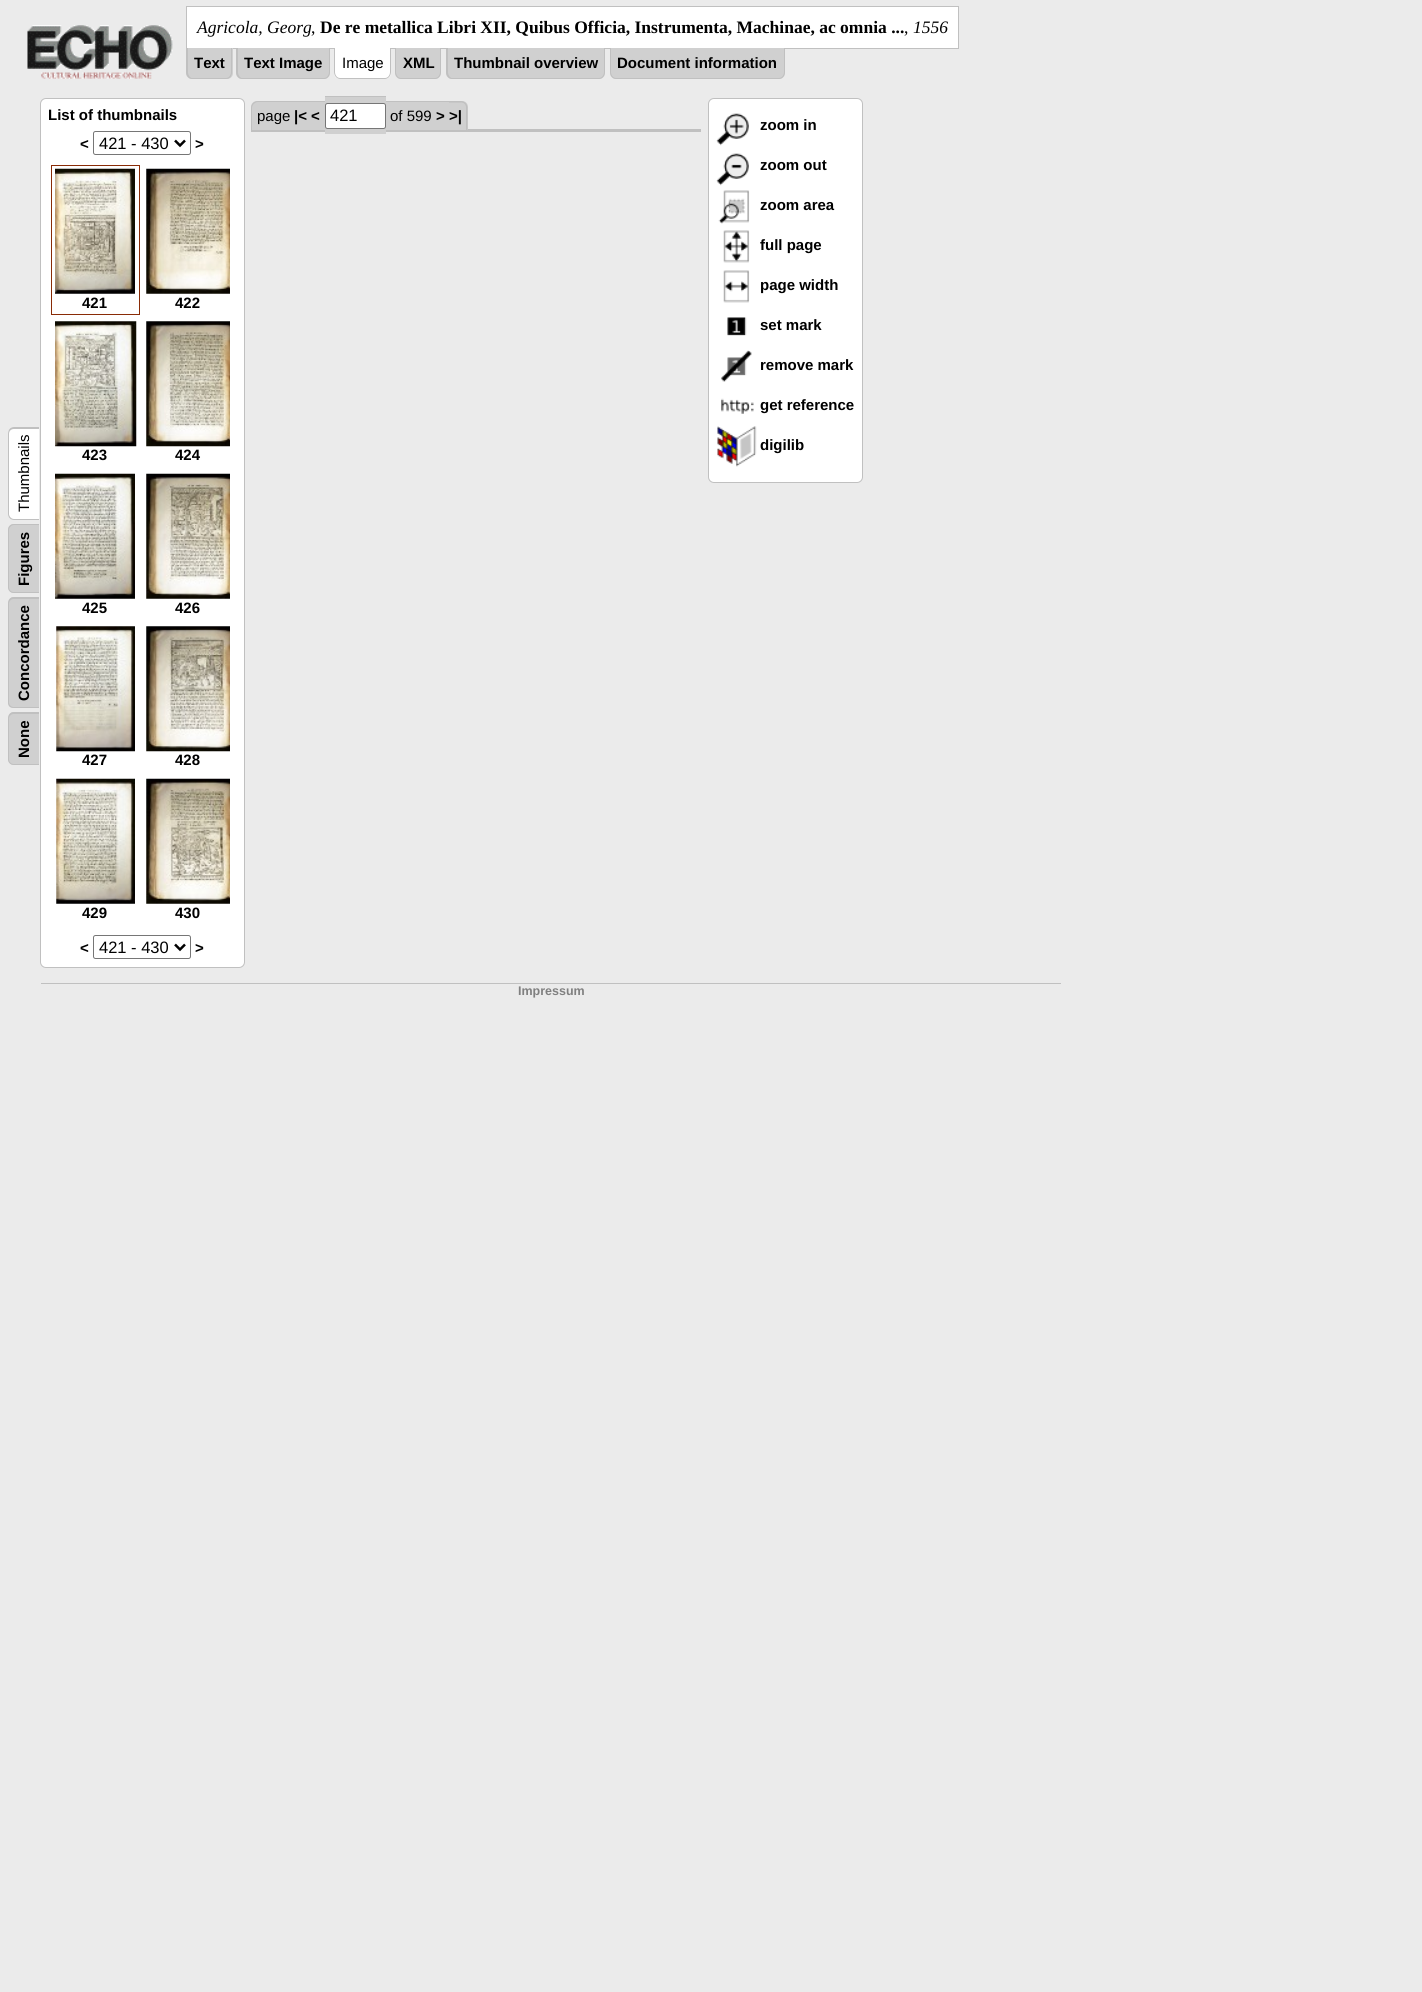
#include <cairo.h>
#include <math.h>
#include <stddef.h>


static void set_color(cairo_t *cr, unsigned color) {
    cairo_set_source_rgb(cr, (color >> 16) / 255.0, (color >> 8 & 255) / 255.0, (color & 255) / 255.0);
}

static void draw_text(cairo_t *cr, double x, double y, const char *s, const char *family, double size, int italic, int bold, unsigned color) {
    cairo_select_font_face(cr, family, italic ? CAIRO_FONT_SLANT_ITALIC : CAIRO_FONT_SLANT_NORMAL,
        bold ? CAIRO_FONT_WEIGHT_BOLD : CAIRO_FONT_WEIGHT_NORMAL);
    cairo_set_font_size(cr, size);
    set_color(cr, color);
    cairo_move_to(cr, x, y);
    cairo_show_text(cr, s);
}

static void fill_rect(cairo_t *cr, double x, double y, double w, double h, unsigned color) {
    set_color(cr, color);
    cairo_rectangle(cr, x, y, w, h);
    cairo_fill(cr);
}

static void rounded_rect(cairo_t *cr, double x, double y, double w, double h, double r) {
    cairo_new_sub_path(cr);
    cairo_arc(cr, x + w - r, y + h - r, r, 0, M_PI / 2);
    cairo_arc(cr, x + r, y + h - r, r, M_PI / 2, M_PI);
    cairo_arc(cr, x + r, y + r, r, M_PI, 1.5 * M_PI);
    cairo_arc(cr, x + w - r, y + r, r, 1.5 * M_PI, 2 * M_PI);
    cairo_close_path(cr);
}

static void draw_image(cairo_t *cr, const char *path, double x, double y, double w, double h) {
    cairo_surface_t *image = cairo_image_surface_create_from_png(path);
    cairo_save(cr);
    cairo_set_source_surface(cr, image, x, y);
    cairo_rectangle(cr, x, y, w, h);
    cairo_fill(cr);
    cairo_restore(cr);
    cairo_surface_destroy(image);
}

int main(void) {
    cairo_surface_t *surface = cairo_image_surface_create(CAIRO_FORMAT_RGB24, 1422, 1992);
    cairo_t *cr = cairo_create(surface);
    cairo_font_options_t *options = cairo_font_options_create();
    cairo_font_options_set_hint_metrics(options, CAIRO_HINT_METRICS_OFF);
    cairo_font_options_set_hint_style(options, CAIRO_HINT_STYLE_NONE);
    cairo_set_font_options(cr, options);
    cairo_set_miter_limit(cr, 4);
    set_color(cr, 0xEBEBEB);
    cairo_paint(cr);
    draw_image(cr, "assets/img1.png", 27, 25, 146, 54);
    set_color(cr, 0xFFFFFF);
    cairo_rectangle(cr, 186.5, 6.5, 772, 42);
    cairo_fill_preserve(cr);
    set_color(cr, 0xC0C0C0);
    cairo_set_line_width(cr, 1);
    cairo_stroke(cr);
    draw_text(cr, 197, 33, "Agricola, Georg", "Liberation Serif", 17.5, 1, 0, 0x000000);
    draw_text(cr, 311, 33, ",", "Liberation Serif", 17.5, 0, 0, 0x000000);
    draw_text(cr, 320, 33, "De re metallica Libri XII, Quibus Officia, Instrumenta, Machinae, ac omnia ...", "Liberation Serif", 17.5, 0, 1, 0x000000);
    draw_text(cr, 904, 33, ",", "Liberation Serif", 17.5, 0, 0, 0x000000);
    draw_text(cr, 913, 33, "1556", "Liberation Serif", 17.5, 1, 0, 0x000000);
    set_color(cr, 0xD0D0D0);
    cairo_new_path(cr);
    cairo_move_to(cr, 186, 48);
    cairo_line_to(cr, 233, 48);
    cairo_line_to(cr, 233, 73);
    cairo_curve_to(cr, 233, 76.5, 230.5, 79, 227, 79);
    cairo_line_to(cr, 192, 79);
    cairo_curve_to(cr, 188.5, 79, 186, 76.5, 186, 73);
    cairo_close_path(cr);
    cairo_fill(cr);
    set_color(cr, 0xC0C0C0);
    cairo_set_fill_rule(cr, CAIRO_FILL_RULE_EVEN_ODD);
    cairo_new_path(cr);
    cairo_move_to(cr, 186, 48);
    cairo_line_to(cr, 232, 48);
    cairo_line_to(cr, 232, 72);
    cairo_curve_to(cr, 232, 76, 230, 79, 226, 79);
    cairo_line_to(cr, 192, 79);
    cairo_curve_to(cr, 189, 79, 186, 76, 186, 72);
    cairo_close_path(cr);
    cairo_move_to(cr, 188, 48);
    cairo_line_to(cr, 231, 48);
    cairo_line_to(cr, 231, 72);
    cairo_curve_to(cr, 231, 75, 229, 78, 226, 78);
    cairo_line_to(cr, 192, 78);
    cairo_curve_to(cr, 190, 78, 188, 75, 188, 72);
    cairo_close_path(cr);
    cairo_fill(cr);
    draw_text(cr, 194, 68, "Text", "Liberation Sans", 15, 0, 1, 0x000000);
    set_color(cr, 0xD0D0D0);
    cairo_new_path(cr);
    cairo_move_to(cr, 236, 48);
    cairo_line_to(cr, 330, 48);
    cairo_line_to(cr, 330, 73);
    cairo_curve_to(cr, 330, 76.5, 327.5, 79, 324, 79);
    cairo_line_to(cr, 242, 79);
    cairo_curve_to(cr, 238.5, 79, 236, 76.5, 236, 73);
    cairo_close_path(cr);
    cairo_fill(cr);
    set_color(cr, 0xC0C0C0);
    cairo_new_path(cr);
    cairo_move_to(cr, 236, 48);
    cairo_line_to(cr, 330, 48);
    cairo_line_to(cr, 330, 72);
    cairo_curve_to(cr, 330, 76, 327, 79, 324, 79);
    cairo_line_to(cr, 242, 79);
    cairo_curve_to(cr, 239, 79, 236, 76, 236, 72);
    cairo_close_path(cr);
    cairo_move_to(cr, 238, 48);
    cairo_line_to(cr, 329, 48);
    cairo_line_to(cr, 329, 72);
    cairo_curve_to(cr, 329, 75, 327, 78, 324, 78);
    cairo_line_to(cr, 242, 78);
    cairo_curve_to(cr, 240, 78, 238, 75, 238, 72);
    cairo_close_path(cr);
    cairo_fill(cr);
    draw_text(cr, 244, 68, "Text Image", "Liberation Sans", 15, 0, 1, 0x000000);
    set_color(cr, 0xFFFFFF);
    cairo_new_path(cr);
    cairo_move_to(cr, 334, 48);
    cairo_line_to(cr, 391, 48);
    cairo_line_to(cr, 391, 73);
    cairo_curve_to(cr, 391, 76.5, 388.5, 79, 385, 79);
    cairo_line_to(cr, 340, 79);
    cairo_curve_to(cr, 336.5, 79, 334, 76.5, 334, 73);
    cairo_close_path(cr);
    cairo_fill(cr);
    set_color(cr, 0xC0C0C0);
    cairo_new_path(cr);
    cairo_move_to(cr, 334, 48);
    cairo_line_to(cr, 391, 48);
    cairo_line_to(cr, 391, 72);
    cairo_curve_to(cr, 391, 76, 388, 79, 385, 79);
    cairo_line_to(cr, 340, 79);
    cairo_curve_to(cr, 337, 79, 334, 76, 334, 72);
    cairo_close_path(cr);
    cairo_move_to(cr, 335, 48);
    cairo_line_to(cr, 390, 48);
    cairo_line_to(cr, 390, 72);
    cairo_curve_to(cr, 390, 75, 388, 78, 385, 78);
    cairo_line_to(cr, 340, 78);
    cairo_curve_to(cr, 337, 78, 335, 75, 335, 72);
    cairo_close_path(cr);
    cairo_fill(cr);
    draw_text(cr, 342, 68, "Image", "Liberation Sans", 15, 0, 0, 0x000000);
    set_color(cr, 0xD0D0D0);
    cairo_new_path(cr);
    cairo_move_to(cr, 395, 48);
    cairo_line_to(cr, 441, 48);
    cairo_line_to(cr, 441, 73);
    cairo_curve_to(cr, 441, 76.5, 438.5, 79, 435, 79);
    cairo_line_to(cr, 401, 79);
    cairo_curve_to(cr, 397.5, 79, 395, 76.5, 395, 73);
    cairo_close_path(cr);
    cairo_fill(cr);
    set_color(cr, 0xC0C0C0);
    cairo_new_path(cr);
    cairo_move_to(cr, 395, 48);
    cairo_line_to(cr, 441, 48);
    cairo_line_to(cr, 441, 72);
    cairo_curve_to(cr, 441, 76, 438, 79, 435, 79);
    cairo_line_to(cr, 401, 79);
    cairo_curve_to(cr, 398, 79, 395, 76, 395, 72);
    cairo_close_path(cr);
    cairo_move_to(cr, 396, 48);
    cairo_line_to(cr, 440, 48);
    cairo_line_to(cr, 440, 72);
    cairo_curve_to(cr, 440, 75, 438, 78, 435, 78);
    cairo_line_to(cr, 401, 78);
    cairo_curve_to(cr, 398, 78, 396, 75, 396, 72);
    cairo_close_path(cr);
    cairo_fill(cr);
    draw_text(cr, 403, 68, "XML", "Liberation Sans", 15, 0, 1, 0x000000);
    set_color(cr, 0xD0D0D0);
    cairo_new_path(cr);
    cairo_move_to(cr, 446, 48);
    cairo_line_to(cr, 605, 48);
    cairo_line_to(cr, 605, 73);
    cairo_curve_to(cr, 605, 76.5, 602.5, 79, 599, 79);
    cairo_line_to(cr, 452, 79);
    cairo_curve_to(cr, 448.5, 79, 446, 76.5, 446, 73);
    cairo_close_path(cr);
    cairo_fill(cr);
    set_color(cr, 0xC0C0C0);
    cairo_new_path(cr);
    cairo_move_to(cr, 446, 48);
    cairo_line_to(cr, 605, 48);
    cairo_line_to(cr, 605, 72);
    cairo_curve_to(cr, 605, 76, 602, 79, 599, 79);
    cairo_line_to(cr, 452, 79);
    cairo_curve_to(cr, 449, 79, 446, 76, 446, 72);
    cairo_close_path(cr);
    cairo_move_to(cr, 448, 48);
    cairo_line_to(cr, 604, 48);
    cairo_line_to(cr, 604, 72);
    cairo_curve_to(cr, 604, 75, 602, 78, 599, 78);
    cairo_line_to(cr, 452, 78);
    cairo_curve_to(cr, 450, 78, 448, 75, 448, 72);
    cairo_close_path(cr);
    cairo_fill(cr);
    draw_text(cr, 454, 68, "Thumbnail overview", "Liberation Sans", 15, 0, 1, 0x000000);
    set_color(cr, 0xD0D0D0);
    cairo_new_path(cr);
    cairo_move_to(cr, 610, 48);
    cairo_line_to(cr, 785, 48);
    cairo_line_to(cr, 785, 73);
    cairo_curve_to(cr, 785, 76.5, 782.5, 79, 779, 79);
    cairo_line_to(cr, 616, 79);
    cairo_curve_to(cr, 612.5, 79, 610, 76.5, 610, 73);
    cairo_close_path(cr);
    cairo_fill(cr);
    set_color(cr, 0xC0C0C0);
    cairo_new_path(cr);
    cairo_move_to(cr, 610, 48);
    cairo_line_to(cr, 785, 48);
    cairo_line_to(cr, 785, 72);
    cairo_curve_to(cr, 785, 76, 782, 79, 779, 79);
    cairo_line_to(cr, 616, 79);
    cairo_curve_to(cr, 613, 79, 610, 76, 610, 72);
    cairo_close_path(cr);
    cairo_move_to(cr, 611, 48);
    cairo_line_to(cr, 784, 48);
    cairo_line_to(cr, 784, 72);
    cairo_curve_to(cr, 784, 75, 782, 78, 779, 78);
    cairo_line_to(cr, 616, 78);
    cairo_curve_to(cr, 613, 78, 611, 75, 611, 72);
    cairo_close_path(cr);
    cairo_fill(cr);
    draw_text(cr, 617, 68, "Document information", "Liberation Sans", 15, 0, 1, 0x000000);
    set_color(cr, 0xFFFFFF);
    cairo_set_fill_rule(cr, CAIRO_FILL_RULE_WINDING);
    cairo_new_path(cr);
    cairo_move_to(cr, 8, 514);
    cairo_line_to(cr, 8, 434);
    cairo_curve_to(cr, 8, 430, 10, 427, 14, 427);
    cairo_line_to(cr, 39, 427);
    cairo_line_to(cr, 39, 520);
    cairo_line_to(cr, 14, 520);
    cairo_curve_to(cr, 10, 520, 8, 517, 8, 514);
    cairo_close_path(cr);
    cairo_fill(cr);
    set_color(cr, 0xC0C0C0);
    cairo_set_fill_rule(cr, CAIRO_FILL_RULE_EVEN_ODD);
    cairo_new_path(cr);
    cairo_move_to(cr, 8, 514);
    cairo_line_to(cr, 8, 434);
    cairo_curve_to(cr, 8, 430, 10, 427, 14, 427);
    cairo_line_to(cr, 39, 427);
    cairo_line_to(cr, 39, 520);
    cairo_line_to(cr, 14, 520);
    cairo_curve_to(cr, 10, 520, 8, 517, 8, 514);
    cairo_close_path(cr);
    cairo_move_to(cr, 9, 514);
    cairo_line_to(cr, 9, 434);
    cairo_curve_to(cr, 9, 431, 11, 429, 14, 429);
    cairo_line_to(cr, 39, 429);
    cairo_line_to(cr, 39, 519);
    cairo_line_to(cr, 14, 519);
    cairo_curve_to(cr, 11, 519, 9, 516, 9, 514);
    cairo_close_path(cr);
    cairo_fill(cr);
    cairo_save(cr);
    cairo_translate(cr, 29, 512);
    cairo_rotate(cr, -90 * M_PI / 180);
    draw_text(cr, 0, 0, "Thumbnails", "Liberation Sans", 15, 0, 0, 0x000000);
    cairo_restore(cr);
    set_color(cr, 0xD0D0D0);
    cairo_set_fill_rule(cr, CAIRO_FILL_RULE_WINDING);
    cairo_new_path(cr);
    cairo_move_to(cr, 8, 587);
    cairo_line_to(cr, 8, 530);
    cairo_curve_to(cr, 8, 527, 10, 524, 14, 524);
    cairo_line_to(cr, 39, 524);
    cairo_line_to(cr, 39, 593);
    cairo_line_to(cr, 14, 593);
    cairo_curve_to(cr, 10, 593, 8, 590, 8, 587);
    cairo_close_path(cr);
    cairo_fill(cr);
    set_color(cr, 0xC0C0C0);
    cairo_set_fill_rule(cr, CAIRO_FILL_RULE_EVEN_ODD);
    cairo_new_path(cr);
    cairo_move_to(cr, 8, 587);
    cairo_line_to(cr, 8, 530);
    cairo_curve_to(cr, 8, 527, 10, 524, 14, 524);
    cairo_line_to(cr, 39, 524);
    cairo_line_to(cr, 39, 593);
    cairo_line_to(cr, 14, 593);
    cairo_curve_to(cr, 10, 593, 8, 590, 8, 587);
    cairo_close_path(cr);
    cairo_move_to(cr, 9, 587);
    cairo_line_to(cr, 9, 530);
    cairo_curve_to(cr, 9, 528, 11, 525, 14, 525);
    cairo_line_to(cr, 39, 525);
    cairo_line_to(cr, 39, 592);
    cairo_line_to(cr, 14, 592);
    cairo_curve_to(cr, 11, 592, 9, 590, 9, 587);
    cairo_close_path(cr);
    cairo_fill(cr);
    cairo_save(cr);
    cairo_translate(cr, 29, 586);
    cairo_rotate(cr, -90 * M_PI / 180);
    draw_text(cr, 0, 0, "Figures", "Liberation Sans", 15, 0, 1, 0x000000);
    cairo_restore(cr);
    set_color(cr, 0xD0D0D0);
    cairo_set_fill_rule(cr, CAIRO_FILL_RULE_WINDING);
    cairo_new_path(cr);
    cairo_move_to(cr, 8, 702);
    cairo_line_to(cr, 8, 604);
    cairo_curve_to(cr, 8, 600, 10, 597, 14, 597);
    cairo_line_to(cr, 39, 597);
    cairo_line_to(cr, 39, 708);
    cairo_line_to(cr, 14, 708);
    cairo_curve_to(cr, 10, 708, 8, 706, 8, 702);
    cairo_close_path(cr);
    cairo_fill(cr);
    set_color(cr, 0xC0C0C0);
    cairo_set_fill_rule(cr, CAIRO_FILL_RULE_EVEN_ODD);
    cairo_new_path(cr);
    cairo_move_to(cr, 8, 702);
    cairo_line_to(cr, 8, 604);
    cairo_curve_to(cr, 8, 600, 10, 597, 14, 597);
    cairo_line_to(cr, 39, 597);
    cairo_line_to(cr, 39, 708);
    cairo_line_to(cr, 14, 708);
    cairo_curve_to(cr, 10, 708, 8, 706, 8, 702);
    cairo_close_path(cr);
    cairo_move_to(cr, 9, 702);
    cairo_line_to(cr, 9, 604);
    cairo_curve_to(cr, 9, 601, 11, 599, 14, 599);
    cairo_line_to(cr, 39, 599);
    cairo_line_to(cr, 39, 707);
    cairo_line_to(cr, 14, 707);
    cairo_curve_to(cr, 11, 707, 9, 705, 9, 702);
    cairo_close_path(cr);
    cairo_fill(cr);
    cairo_save(cr);
    cairo_translate(cr, 29, 701);
    cairo_rotate(cr, -90 * M_PI / 180);
    draw_text(cr, 0, 0, "Concordance", "Liberation Sans", 15, 0, 1, 0x000000);
    cairo_restore(cr);
    set_color(cr, 0xD0D0D0);
    cairo_set_fill_rule(cr, CAIRO_FILL_RULE_WINDING);
    cairo_new_path(cr);
    cairo_move_to(cr, 8, 759);
    cairo_line_to(cr, 8, 719);
    cairo_curve_to(cr, 8, 715, 10, 712, 14, 712);
    cairo_line_to(cr, 39, 712);
    cairo_line_to(cr, 39, 765);
    cairo_line_to(cr, 14, 765);
    cairo_curve_to(cr, 10, 765, 8, 762, 8, 759);
    cairo_close_path(cr);
    cairo_fill(cr);
    set_color(cr, 0xC0C0C0);
    cairo_set_fill_rule(cr, CAIRO_FILL_RULE_EVEN_ODD);
    cairo_new_path(cr);
    cairo_move_to(cr, 8, 759);
    cairo_line_to(cr, 8, 719);
    cairo_curve_to(cr, 8, 715, 10, 712, 14, 712);
    cairo_line_to(cr, 39, 712);
    cairo_line_to(cr, 39, 765);
    cairo_line_to(cr, 14, 765);
    cairo_curve_to(cr, 10, 765, 8, 762, 8, 759);
    cairo_close_path(cr);
    cairo_move_to(cr, 9, 759);
    cairo_line_to(cr, 9, 719);
    cairo_curve_to(cr, 9, 716, 11, 714, 14, 714);
    cairo_line_to(cr, 39, 714);
    cairo_line_to(cr, 39, 764);
    cairo_line_to(cr, 14, 764);
    cairo_curve_to(cr, 11, 764, 9, 762, 9, 759);
    cairo_close_path(cr);
    cairo_fill(cr);
    cairo_save(cr);
    cairo_translate(cr, 29, 758);
    cairo_rotate(cr, -90 * M_PI / 180);
    draw_text(cr, 0, 0, "None", "Liberation Sans", 15, 0, 1, 0x000000);
    cairo_restore(cr);
    set_color(cr, 0xFFFFFF);
    rounded_rect(cr, 40.5, 98.5, 204, 869, 5.5);
    cairo_fill_preserve(cr);
    set_color(cr, 0xC0C0C0);
    cairo_stroke(cr);
    draw_text(cr, 48, 120, "List of thumbnails", "Liberation Sans", 15, 0, 1, 0x000000);
    draw_text(cr, 80, 149, "<", "Liberation Sans", 15, 0, 1, 0x000000);
    rounded_rect(cr, 93.5, 131.5, 97, 23, 2);
    set_color(cr, 0x767676);
    cairo_stroke(cr);
    cairo_new_path(cr);
    cairo_move_to(cr, 175, 140.5);
    cairo_line_to(cr, 180, 145.5);
    cairo_line_to(cr, 185, 140.5);
    set_color(cr, 0x000000);
    cairo_set_line_width(cr, 2.5);
    cairo_stroke(cr);
    draw_text(cr, 99, 149, "421 - 430", "Liberation Sans", 16.5, 0, 0, 0x000000);
    draw_text(cr, 195, 149, ">", "Liberation Sans", 15, 0, 1, 0x000000);
    cairo_rectangle(cr, 51.5, 165.5, 88, 149);
    set_color(cr, 0x892B06);
    cairo_set_line_width(cr, 1);
    cairo_stroke(cr);
    draw_image(cr, "assets/img2.png", 55, 168, 80, 126);
    draw_text(cr, 82, 308, "421", "Liberation Sans", 15, 0, 1, 0x000000);
    draw_image(cr, "assets/img3.png", 146, 168, 84, 126);
    draw_text(cr, 175, 308, "422", "Liberation Sans", 15, 0, 1, 0x000000);
    draw_image(cr, "assets/img4.png", 55, 321, 82, 126);
    draw_text(cr, 82, 460, "423", "Liberation Sans", 15, 0, 1, 0x000000);
    draw_image(cr, "assets/img5.png", 146, 321, 84, 126);
    draw_text(cr, 175, 460, "424", "Liberation Sans", 15, 0, 1, 0x000000);
    draw_image(cr, "assets/img6.png", 55, 473, 80, 126);
    draw_text(cr, 82, 613, "425", "Liberation Sans", 15, 0, 1, 0x000000);
    draw_image(cr, "assets/img7.png", 146, 473, 84, 126);
    draw_text(cr, 175, 613, "426", "Liberation Sans", 15, 0, 1, 0x000000);
    draw_image(cr, "assets/img8.png", 56, 626, 79, 126);
    draw_text(cr, 82, 765, "427", "Liberation Sans", 15, 0, 1, 0x000000);
    draw_image(cr, "assets/img9.png", 146, 626, 84, 126);
    draw_text(cr, 175, 765, "428", "Liberation Sans", 15, 0, 1, 0x000000);
    draw_image(cr, "assets/img10.png", 56, 778, 79, 126);
    draw_text(cr, 82, 918, "429", "Liberation Sans", 15, 0, 1, 0x000000);
    draw_image(cr, "assets/img11.png", 146, 778, 84, 126);
    draw_text(cr, 175, 918, "430", "Liberation Sans", 15, 0, 1, 0x000000);
    draw_text(cr, 80, 953, "<", "Liberation Sans", 15, 0, 1, 0x000000);
    rounded_rect(cr, 93.5, 935.5, 97, 23, 2);
    set_color(cr, 0x767676);
    cairo_stroke(cr);
    cairo_new_path(cr);
    cairo_move_to(cr, 175, 944.5);
    cairo_line_to(cr, 180, 949.5);
    cairo_line_to(cr, 185, 944.5);
    set_color(cr, 0x000000);
    cairo_set_line_width(cr, 2.5);
    cairo_stroke(cr);
    draw_text(cr, 99, 953, "421 - 430", "Liberation Sans", 16.5, 0, 0, 0x000000);
    draw_text(cr, 195, 953, ">", "Liberation Sans", 15, 0, 1, 0x000000);
    fill_rect(cr, 251, 129, 450, 3, 0xC0C0C0);
    set_color(cr, 0xD0D0D0);
    cairo_new_path(cr);
    cairo_move_to(cr, 257, 101);
    cairo_line_to(cr, 295, 101);
    cairo_line_to(cr, 295, 130);
    cairo_line_to(cr, 251, 130);
    cairo_line_to(cr, 251, 107);
    cairo_curve_to(cr, 251, 103.5, 253.5, 101, 257, 101);
    cairo_close_path(cr);
    cairo_fill(cr);
    set_color(cr, 0xC0C0C0);
    cairo_new_path(cr);
    cairo_move_to(cr, 258, 101);
    cairo_line_to(cr, 295, 101);
    cairo_line_to(cr, 295, 130);
    cairo_line_to(cr, 251, 130);
    cairo_line_to(cr, 251, 108);
    cairo_curve_to(cr, 251, 104, 254, 101, 258, 101);
    cairo_close_path(cr);
    cairo_move_to(cr, 258, 102);
    cairo_line_to(cr, 295, 102);
    cairo_line_to(cr, 295, 130);
    cairo_line_to(cr, 252, 130);
    cairo_line_to(cr, 252, 108);
    cairo_curve_to(cr, 252, 105, 255, 102, 258, 102);
    cairo_close_path(cr);
    cairo_fill(cr);
    fill_rect(cr, 295, 102, 13, 28, 0xD0D0D0);
    fill_rect(cr, 295, 101, 13, 1, 0xC0C0C0);
    fill_rect(cr, 308, 101, 3, 29, 0xD0D0D0);
    fill_rect(cr, 308, 101, 12, 1, 0xC0C0C0);
    fill_rect(cr, 311, 102, 9, 28, 0xD0D0D0);
    fill_rect(cr, 320, 101, 5, 29, 0xD0D0D0);
    fill_rect(cr, 320, 101, 5, 1, 0xC0C0C0);
    fill_rect(cr, 325, 97, 61, 37, 0xD0D0D0);
    fill_rect(cr, 325, 96, 61, 1, 0xC0C0C0);
    fill_rect(cr, 386, 101, 4, 29, 0xD0D0D0);
    fill_rect(cr, 386, 101, 59, 1, 0xC0C0C0);
    fill_rect(cr, 390, 102, 55, 28, 0xD0D0D0);
    fill_rect(cr, 445, 101, 4, 29, 0xD0D0D0);
    fill_rect(cr, 445, 101, 4, 1, 0xC0C0C0);
    set_color(cr, 0xD0D0D0);
    cairo_new_path(cr);
    cairo_move_to(cr, 449, 101);
    cairo_line_to(cr, 462, 101);
    cairo_curve_to(cr, 465.5, 101, 468, 103.5, 468, 107);
    cairo_line_to(cr, 468, 130);
    cairo_line_to(cr, 449, 130);
    cairo_close_path(cr);
    cairo_fill(cr);
    set_color(cr, 0xC0C0C0);
    cairo_new_path(cr);
    cairo_move_to(cr, 449, 101);
    cairo_line_to(cr, 461, 101);
    cairo_curve_to(cr, 464.5, 101, 467.5, 104, 467.5, 107.5);
    cairo_line_to(cr, 467.5, 130);
    cairo_line_to(cr, 449, 130);
    cairo_close_path(cr);
    cairo_move_to(cr, 449, 102.5);
    cairo_line_to(cr, 461, 102.5);
    cairo_curve_to(cr, 464, 102.5, 466, 104.5, 466, 107.5);
    cairo_line_to(cr, 466, 130);
    cairo_line_to(cr, 449, 130);
    cairo_close_path(cr);
    cairo_fill(cr);
    draw_text(cr, 257, 121, "page", "Liberation Sans", 15, 0, 0, 0x000000);
    draw_text(cr, 294, 121, "|< <", "Liberation Sans", 15, 0, 1, 0x000000);
    set_color(cr, 0xFFFFFF);
    rounded_rect(cr, 325.5, 103.5, 60, 25, 2);
    cairo_fill_preserve(cr);
    set_color(cr, 0x767676);
    cairo_set_line_width(cr, 1);
    cairo_stroke(cr);
    draw_text(cr, 330, 121, "421", "Liberation Sans", 16.5, 0, 0, 0x000000);
    draw_text(cr, 390, 121, "of 599", "Liberation Sans", 15, 0, 0, 0x000000);
    draw_text(cr, 436, 121, "> >|", "Liberation Sans", 15, 0, 1, 0x000000);
    set_color(cr, 0xFFFFFF);
    rounded_rect(cr, 708.5, 98.5, 154, 384, 5.5);
    cairo_fill_preserve(cr);
    set_color(cr, 0xC0C0C0);
    cairo_stroke(cr);
    draw_image(cr, "assets/img12.png", 716, 113, 33, 33);
    draw_text(cr, 760, 130, "zoom in", "Liberation Sans", 15, 0, 1, 0x000000);
    draw_image(cr, "assets/img13.png", 716, 153, 33, 33);
    draw_text(cr, 760, 170, "zoom out", "Liberation Sans", 15, 0, 1, 0x000000);
    draw_image(cr, "assets/img14.png", 718, 190, 32, 34);
    draw_text(cr, 760, 210, "zoom area", "Liberation Sans", 15, 0, 1, 0x000000);
    draw_image(cr, "assets/img15.png", 723, 230, 27, 33);
    draw_text(cr, 760, 250, "full page", "Liberation Sans", 15, 0, 1, 0x000000);
    draw_image(cr, "assets/img16.png", 723, 270, 27, 33);
    draw_text(cr, 760, 290, "page width", "Liberation Sans", 15, 0, 1, 0x000000);
    draw_image(cr, "assets/img17.png", 727, 317, 20, 19);
    draw_text(cr, 760, 330, "set mark", "Liberation Sans", 15, 0, 1, 0x000000);
    draw_image(cr, "assets/img18.png", 721, 350, 31, 32);
    draw_text(cr, 760, 370, "remove mark", "Liberation Sans", 15, 0, 1, 0x000000);
    draw_image(cr, "assets/img19.png", 721, 398, 33, 16);
    draw_text(cr, 760, 410, "get reference", "Liberation Sans", 15, 0, 1, 0x000000);
    draw_image(cr, "assets/img20.png", 717, 426, 40, 41);
    draw_text(cr, 760, 450, "digilib", "Liberation Sans", 15, 0, 1, 0x000000);
    fill_rect(cr, 41, 983, 1020, 1, 0xC0C0C0);
    draw_text(cr, 518, 995, "Impressum", "Liberation Sans", 12.5, 0, 1, 0x808080);
    cairo_surface_write_to_png(surface, "output.png");
    cairo_font_options_destroy(options);
    cairo_destroy(cr);
    cairo_surface_destroy(surface);
    return 0;
}
